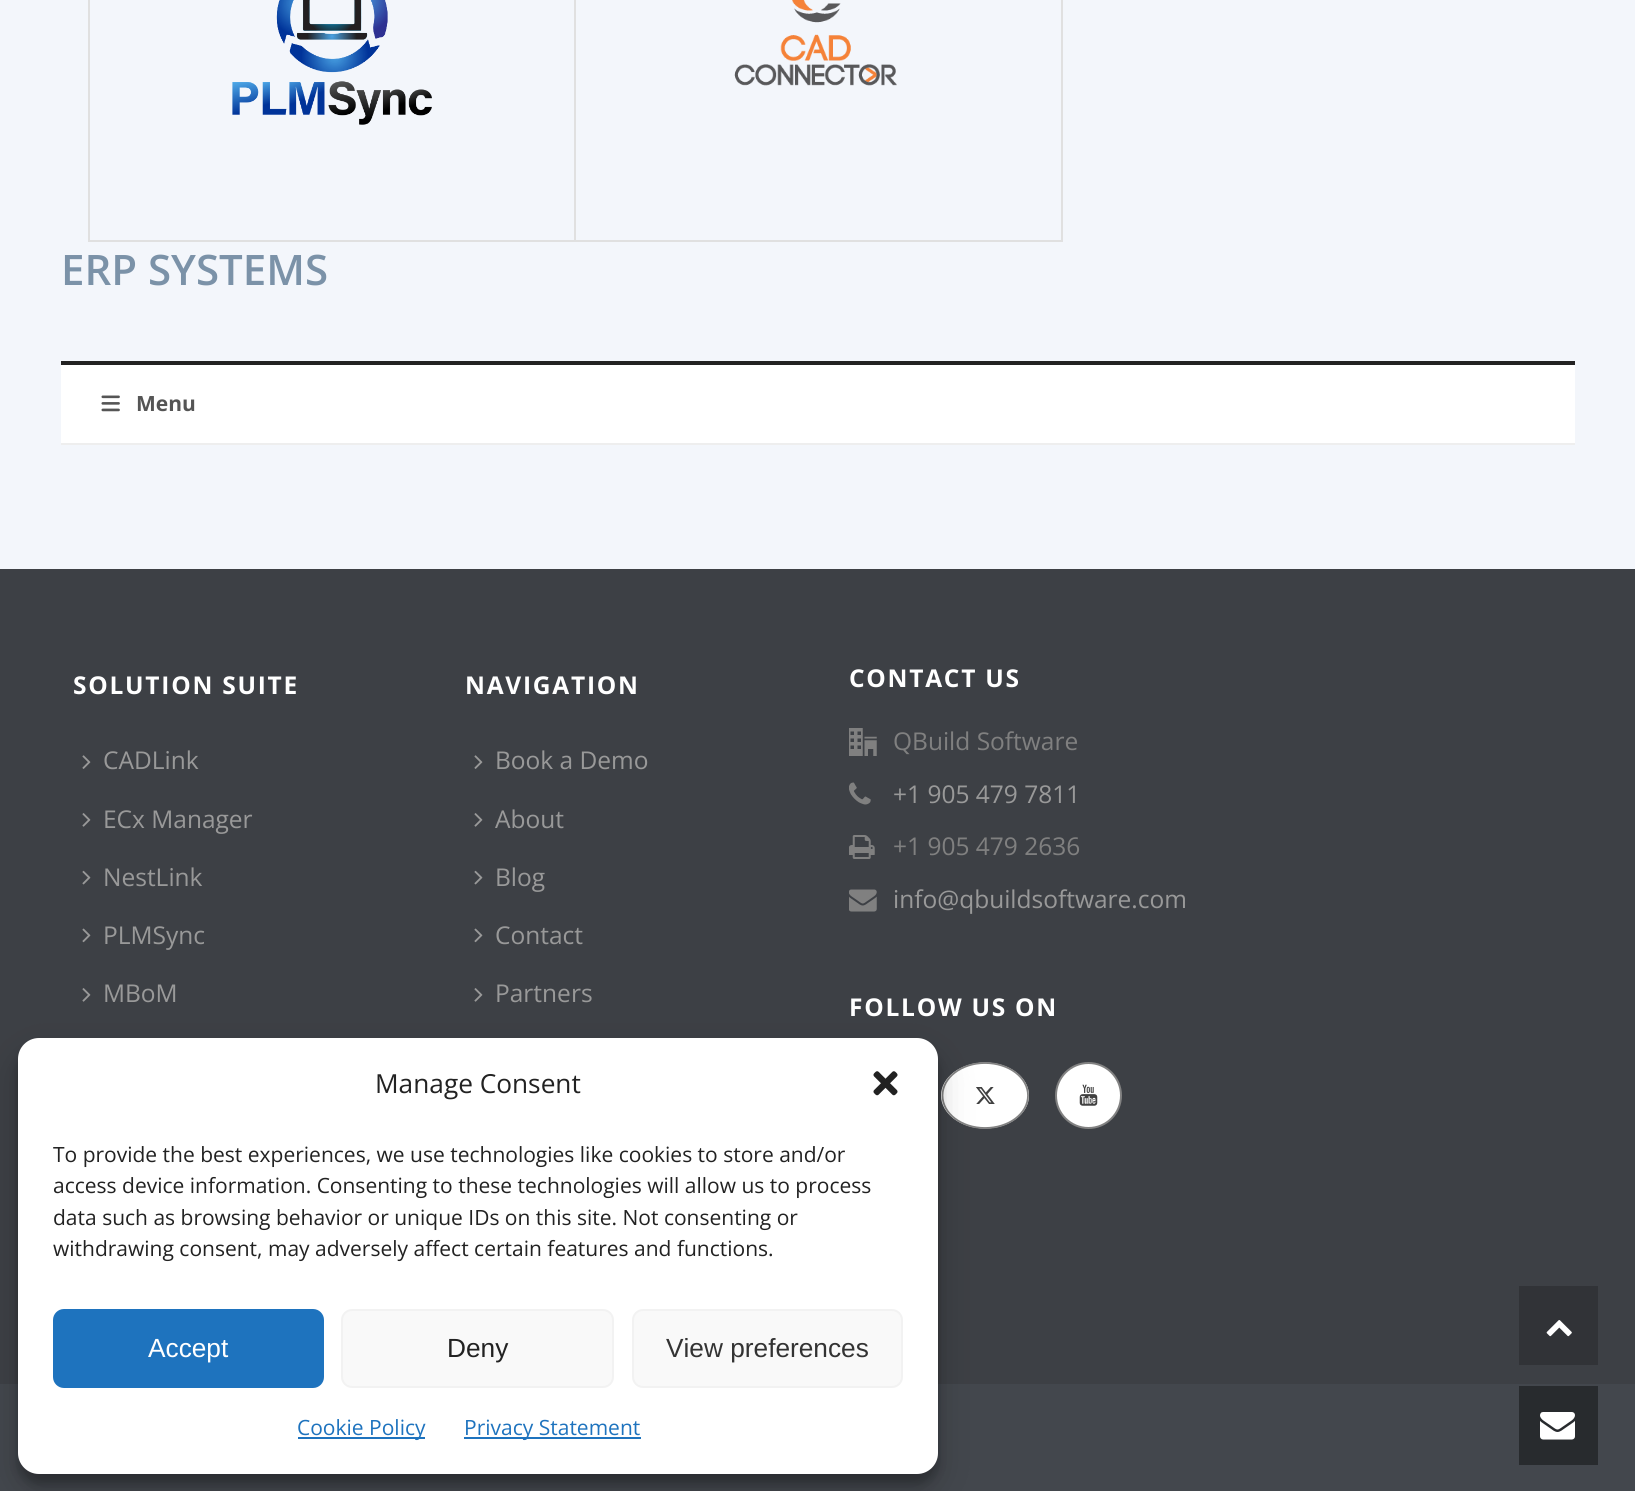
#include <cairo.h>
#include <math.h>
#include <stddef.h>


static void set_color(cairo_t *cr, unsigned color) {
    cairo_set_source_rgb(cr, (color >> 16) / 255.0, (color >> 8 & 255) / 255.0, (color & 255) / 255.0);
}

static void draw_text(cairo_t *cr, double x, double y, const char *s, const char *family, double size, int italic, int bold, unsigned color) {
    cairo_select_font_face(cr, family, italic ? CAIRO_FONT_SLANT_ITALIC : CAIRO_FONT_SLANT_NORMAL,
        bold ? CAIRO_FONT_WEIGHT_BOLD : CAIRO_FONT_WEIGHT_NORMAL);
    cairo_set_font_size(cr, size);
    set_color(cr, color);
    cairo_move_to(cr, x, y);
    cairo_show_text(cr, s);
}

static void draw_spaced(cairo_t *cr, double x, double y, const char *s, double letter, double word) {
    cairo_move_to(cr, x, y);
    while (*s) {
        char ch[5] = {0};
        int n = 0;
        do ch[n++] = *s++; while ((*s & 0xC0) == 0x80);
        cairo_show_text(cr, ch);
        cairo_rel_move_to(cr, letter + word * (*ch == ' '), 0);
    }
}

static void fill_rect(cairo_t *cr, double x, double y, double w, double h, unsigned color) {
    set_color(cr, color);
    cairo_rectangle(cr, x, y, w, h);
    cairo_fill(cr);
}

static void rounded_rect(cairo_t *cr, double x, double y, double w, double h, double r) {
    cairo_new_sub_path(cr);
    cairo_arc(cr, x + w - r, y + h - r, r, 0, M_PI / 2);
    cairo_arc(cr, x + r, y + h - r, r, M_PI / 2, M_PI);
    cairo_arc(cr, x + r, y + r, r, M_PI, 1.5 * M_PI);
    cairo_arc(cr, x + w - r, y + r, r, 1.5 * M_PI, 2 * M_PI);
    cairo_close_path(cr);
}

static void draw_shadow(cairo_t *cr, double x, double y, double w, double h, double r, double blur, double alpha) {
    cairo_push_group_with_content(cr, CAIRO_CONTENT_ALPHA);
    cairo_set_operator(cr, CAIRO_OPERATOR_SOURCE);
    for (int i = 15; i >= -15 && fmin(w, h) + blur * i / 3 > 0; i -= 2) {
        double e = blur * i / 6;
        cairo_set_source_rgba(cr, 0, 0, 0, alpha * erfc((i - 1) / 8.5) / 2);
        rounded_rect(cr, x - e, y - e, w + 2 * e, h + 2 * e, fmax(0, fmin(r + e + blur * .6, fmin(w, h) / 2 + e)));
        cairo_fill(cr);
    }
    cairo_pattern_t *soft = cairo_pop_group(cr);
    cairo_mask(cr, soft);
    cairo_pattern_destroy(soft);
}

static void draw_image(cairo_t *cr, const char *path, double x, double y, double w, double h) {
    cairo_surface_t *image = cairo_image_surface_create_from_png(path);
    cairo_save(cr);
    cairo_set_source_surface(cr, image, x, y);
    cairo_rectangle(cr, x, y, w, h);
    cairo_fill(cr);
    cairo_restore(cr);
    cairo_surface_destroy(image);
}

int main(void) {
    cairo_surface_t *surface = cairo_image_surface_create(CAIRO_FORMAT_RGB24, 1635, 1491);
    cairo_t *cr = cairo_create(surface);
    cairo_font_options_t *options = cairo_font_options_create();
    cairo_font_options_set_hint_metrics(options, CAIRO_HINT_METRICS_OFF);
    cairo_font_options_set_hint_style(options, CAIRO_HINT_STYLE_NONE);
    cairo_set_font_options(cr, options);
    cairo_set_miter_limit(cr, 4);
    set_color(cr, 0x3D4045);
    cairo_paint(cr);
    fill_rect(cr, 0, 0, 1635, 569, 0xF3F6FB);
    fill_rect(cr, 88, 240, 486, 2, 0xE0E0E0);
    fill_rect(cr, 88, 0, 2, 242, 0xE0E0E0);
    draw_image(cr, "assets/img1.png", 232, 0, 200, 125);
    fill_rect(cr, 1061, 0, 2, 242, 0xE0E0E0);
    fill_rect(cr, 574, 240, 488, 2, 0xE0E0E0);
    fill_rect(cr, 574, 0, 2, 242, 0xE0E0E0);
    draw_image(cr, "assets/img2.png", 734, 0, 163, 86);
    draw_text(cr, 61, 285, "ERP SYSTEMS", "Open Sans SemiBold", 42, 0, 0, 0x7B92A8);
    fill_rect(cr, 61, 365, 1514, 78, 0xFFFFFF);
    fill_rect(cr, 61, 361, 1514, 4, 0x222222);
    fill_rect(cr, 61, 443, 1514, 2, 0xEEEEEE);
    draw_image(cr, "assets/img3.png", 101, 395, 19, 17);
    draw_text(cr, 136, 411, "Menu", "Open Sans", 21, 0, 1, 0x555555);
    cairo_set_font_size(cr, 24.5);
    set_color(cr, 0xFFFFFF);
    draw_spaced(cr, 73, 694, "SOLUTION SUITE", 1.75, 0);
    draw_image(cr, "assets/img4.png", 82, 755, 9, 14);
    draw_text(cr, 103, 769, "CADLink", "Open Sans", 24.5, 0, 0, 0x999999);
    draw_image(cr, "assets/img5.png", 82, 813, 9, 14);
    draw_text(cr, 103, 828, "ECx Manager", "Open Sans", 24.5, 0, 0, 0x999999);
    draw_image(cr, "assets/img6.png", 82, 870, 9, 15);
    draw_text(cr, 103, 886, "NestLink", "Open Sans", 24.5, 0, 0, 0x999999);
    draw_image(cr, "assets/img7.png", 82, 928, 9, 15);
    draw_text(cr, 103, 944, "PLMSync", "Open Sans", 24.5, 0, 0, 0x999999);
    draw_image(cr, "assets/img5.png", 82, 988, 9, 14);
    draw_text(cr, 103, 1002, "MBoM", "Open Sans", 24.5, 0, 0, 0x999999);
    cairo_select_font_face(cr, "Open Sans", CAIRO_FONT_SLANT_NORMAL, CAIRO_FONT_WEIGHT_BOLD);
    set_color(cr, 0xFFFFFF);
    draw_spaced(cr, 465, 694, "NAVIGATION", 1.75, 0);
    draw_image(cr, "assets/img4.png", 474, 755, 9, 14);
    draw_text(cr, 495, 769, "Book a Demo", "Open Sans", 24.5, 0, 0, 0x999999);
    draw_image(cr, "assets/img5.png", 474, 813, 9, 14);
    draw_text(cr, 495, 828, "About", "Open Sans", 24.5, 0, 0, 0x999999);
    draw_image(cr, "assets/img6.png", 474, 870, 9, 15);
    draw_text(cr, 495, 886, "Blog", "Open Sans", 24.5, 0, 0, 0x999999);
    draw_image(cr, "assets/img7.png", 474, 928, 9, 15);
    draw_text(cr, 495, 944, "Contact", "Open Sans", 24.5, 0, 0, 0x999999);
    draw_image(cr, "assets/img5.png", 474, 988, 9, 14);
    draw_text(cr, 495, 1002, "Partners", "Open Sans", 24.5, 0, 0, 0x999999);
    cairo_select_font_face(cr, "Open Sans", CAIRO_FONT_SLANT_NORMAL, CAIRO_FONT_WEIGHT_BOLD);
    set_color(cr, 0xFFFFFF);
    draw_spaced(cr, 849, 687, "CONTACT US", 1.75, 0);
    draw_image(cr, "assets/img8.png", 849, 728, 28, 28);
    draw_text(cr, 893, 750, "QBuild Software", "Open Sans", 24.5, 0, 0, 0x808080);
    draw_image(cr, "assets/img9.png", 849, 782, 22, 23);
    draw_text(cr, 893, 803, "+1 905 479 7811", "Open Sans", 24.5, 0, 0, 0x999999);
    draw_image(cr, "assets/img10.png", 849, 835, 26, 24);
    draw_text(cr, 893, 855, "+1 905 479 2636", "Open Sans", 24.5, 0, 0, 0x808080);
    draw_image(cr, "assets/img11.png", 849, 889, 28, 23);
    draw_text(cr, 893, 908, "info@qbuildsoftware.com", "Open Sans", 24.5, 0, 0, 0x999999);
    cairo_select_font_face(cr, "Open Sans", CAIRO_FONT_SLANT_NORMAL, CAIRO_FONT_WEIGHT_BOLD);
    set_color(cr, 0xFFFFFF);
    draw_spaced(cr, 849, 1016, "FOLLOW US ON", 1.75, 0);
    cairo_new_path(cr);
    cairo_move_to(cr, 985, 1062.5);
    cairo_curve_to(cr, 1009.5, 1062.5, 1029, 1077.5, 1029, 1095.5);
    cairo_curve_to(cr, 1029, 1113.5, 1009.5, 1128.5, 985, 1128.5);
    cairo_curve_to(cr, 960.5, 1128.5, 941, 1113.5, 941, 1095.5);
    cairo_curve_to(cr, 941, 1077.5, 960.5, 1062.5, 985, 1062.5);
    cairo_close_path(cr);
    cairo_fill(cr);
    cairo_new_path(cr);
    cairo_move_to(cr, 985, 1063);
    cairo_curve_to(cr, 1009, 1063, 1028, 1077.5, 1028, 1095.5);
    cairo_curve_to(cr, 1028, 1113.5, 1009, 1128, 985, 1128);
    cairo_curve_to(cr, 961.5, 1128, 942.5, 1113.5, 942.5, 1095.5);
    cairo_curve_to(cr, 942.5, 1077.5, 961.5, 1063, 985, 1063);
    cairo_close_path(cr);
    set_color(cr, 0x828282);
    cairo_set_line_width(cr, 1.8);
    cairo_stroke(cr);
    draw_image(cr, "assets/img12.png", 976, 1087, 19, 17);
    set_color(cr, 0xFFFFFF);
    cairo_arc(cr, 1088.5, 1095.5, 32.5, 0, 2 * M_PI);
    cairo_fill_preserve(cr);
    set_color(cr, 0x828282);
    cairo_set_line_width(cr, 2);
    cairo_stroke(cr);
    draw_image(cr, "assets/img13.png", 1079, 1084, 19, 22);
    fill_rect(cr, 0, 1384, 1635, 107, 0x43474D);
    set_color(cr, 0x000000);
    draw_shadow(cr, 18, 1048, 920, 436, 21, 5, 0.23);
    draw_shadow(cr, 18, 1055, 920, 436, 21, 17.5, 0.19);
    set_color(cr, 0xFFFFFF);
    rounded_rect(cr, 18, 1038, 920, 436, 21);
    cairo_fill(cr);
    draw_text(cr, 375, 1093, "Manage Consent", "Open Sans", 26.25, 0, 0, 0x222222);
    draw_image(cr, "assets/img14.png", 873, 1071, 25, 25);
    draw_text(cr, 53, 1162, "To provide the best experiences, we use technologies like cookies to store and/or", "Open Sans", 21, 0, 0, 0x222222);
    draw_text(cr, 53, 1193, "access device information. Consenting to these technologies will allow us to process", "Open Sans", 21, 0, 0, 0x222222);
    draw_text(cr, 53, 1225, "data such as browsing behavior or unique IDs on this site. Not consenting or", "Open Sans", 21, 0, 0, 0x222222);
    draw_text(cr, 53, 1256, "withdrawing consent, may adversely affect certain features and functions.", "Open Sans", 21, 0, 0, 0x222222);
    set_color(cr, 0x1E73BE);
    rounded_rect(cr, 54, 1310, 269, 77, 10);
    cairo_fill_preserve(cr);
    cairo_stroke(cr);
    draw_text(cr, 148, 1357, "Accept", "Liberation Sans", 26.25, 0, 0, 0xFFFFFF);
    set_color(cr, 0xF9F9F9);
    rounded_rect(cr, 342, 1310, 271, 77, 10);
    cairo_fill_preserve(cr);
    set_color(cr, 0xF2F2F2);
    cairo_stroke(cr);
    draw_text(cr, 447, 1357, "Deny", "Liberation Sans", 26.25, 0, 0, 0x222222);
    set_color(cr, 0xF9F9F9);
    rounded_rect(cr, 633, 1310, 269, 77, 10);
    cairo_fill_preserve(cr);
    set_color(cr, 0xF2F2F2);
    cairo_stroke(cr);
    draw_text(cr, 666, 1357, "View preferences", "Liberation Sans", 26.25, 0, 0, 0x333333);
    fill_rect(cr, 298, 1437, 127, 2, 0x1E73BE);
    draw_text(cr, 297, 1435, "Cookie Policy", "Open Sans", 21, 0, 0, 0x1E73BE);
    fill_rect(cr, 464, 1437, 177, 2, 0x1E73BE);
    draw_text(cr, 464, 1435, "Privacy Statement", "Open Sans", 21, 0, 0, 0x1E73BE);
    fill_rect(cr, 1519, 1286, 79, 79, 0x313337);
    draw_image(cr, "assets/img15.png", 1546, 1320, 26, 17);
    fill_rect(cr, 1519, 1386, 79, 79, 0x282B2E);
    draw_image(cr, "assets/img16.png", 1540, 1412, 35, 28);
    cairo_surface_write_to_png(surface, "output.png");
    cairo_font_options_destroy(options);
    cairo_destroy(cr);
    cairo_surface_destroy(surface);
    return 0;
}
